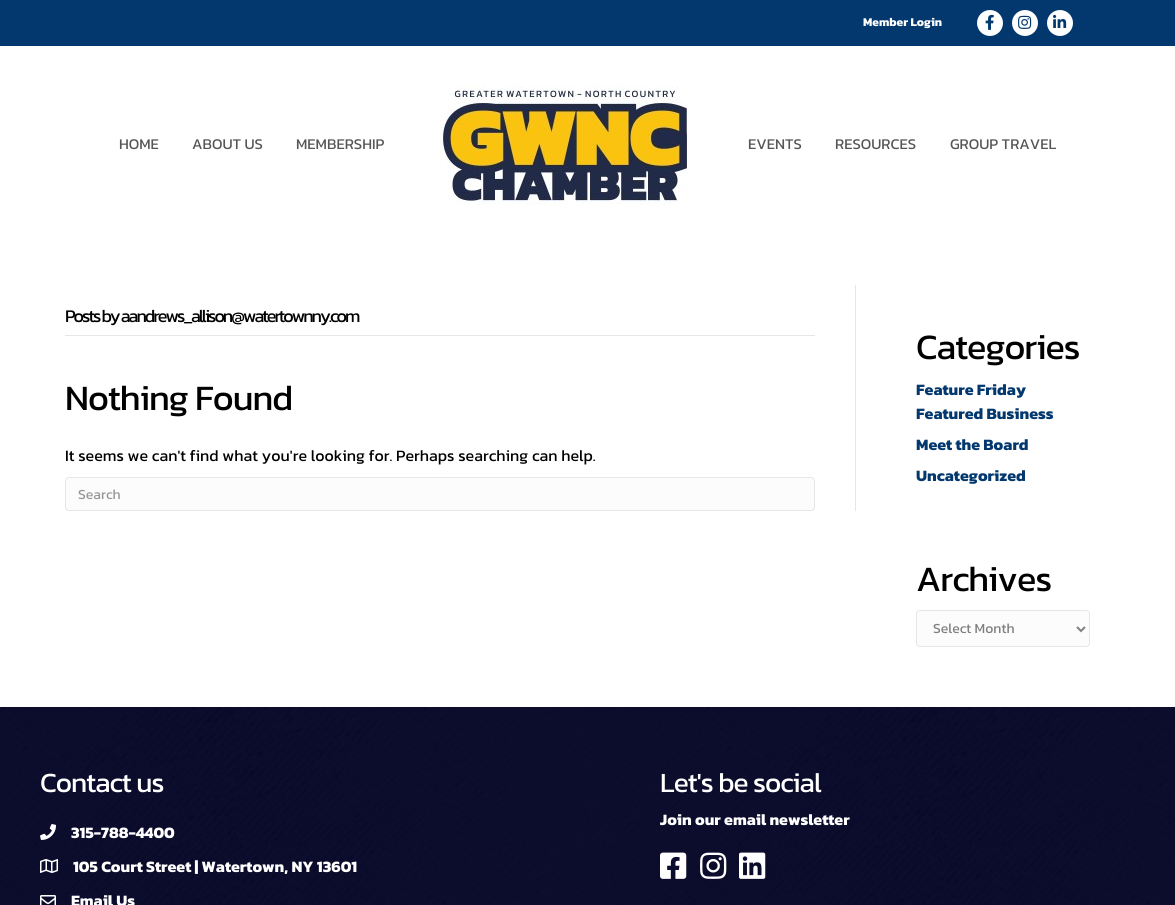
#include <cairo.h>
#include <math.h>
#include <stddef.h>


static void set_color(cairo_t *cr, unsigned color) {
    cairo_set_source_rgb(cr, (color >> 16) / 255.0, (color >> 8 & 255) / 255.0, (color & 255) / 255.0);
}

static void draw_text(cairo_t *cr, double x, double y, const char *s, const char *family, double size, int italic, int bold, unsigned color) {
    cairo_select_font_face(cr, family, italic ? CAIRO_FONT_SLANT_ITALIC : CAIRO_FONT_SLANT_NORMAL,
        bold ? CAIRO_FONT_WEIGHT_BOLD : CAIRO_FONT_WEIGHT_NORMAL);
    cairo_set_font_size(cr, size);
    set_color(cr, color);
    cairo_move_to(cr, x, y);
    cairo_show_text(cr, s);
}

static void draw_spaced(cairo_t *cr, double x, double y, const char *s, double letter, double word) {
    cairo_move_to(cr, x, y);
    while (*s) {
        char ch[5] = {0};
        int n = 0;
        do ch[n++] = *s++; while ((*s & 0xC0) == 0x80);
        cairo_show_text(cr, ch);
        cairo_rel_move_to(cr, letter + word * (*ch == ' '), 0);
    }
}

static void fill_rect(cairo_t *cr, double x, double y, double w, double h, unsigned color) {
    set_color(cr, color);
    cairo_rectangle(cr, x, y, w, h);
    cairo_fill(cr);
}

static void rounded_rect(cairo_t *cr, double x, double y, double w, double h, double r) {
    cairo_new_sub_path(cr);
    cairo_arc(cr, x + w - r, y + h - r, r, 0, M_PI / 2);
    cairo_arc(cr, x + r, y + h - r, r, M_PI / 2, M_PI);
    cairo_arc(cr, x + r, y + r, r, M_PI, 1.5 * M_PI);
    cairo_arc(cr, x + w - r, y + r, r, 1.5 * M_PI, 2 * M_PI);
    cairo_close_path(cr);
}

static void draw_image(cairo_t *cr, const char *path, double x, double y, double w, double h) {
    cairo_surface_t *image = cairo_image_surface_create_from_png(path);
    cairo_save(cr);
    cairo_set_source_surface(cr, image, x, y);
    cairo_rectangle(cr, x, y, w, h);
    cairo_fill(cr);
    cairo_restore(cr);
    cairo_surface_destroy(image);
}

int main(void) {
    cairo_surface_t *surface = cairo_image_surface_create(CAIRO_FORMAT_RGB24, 1175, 905);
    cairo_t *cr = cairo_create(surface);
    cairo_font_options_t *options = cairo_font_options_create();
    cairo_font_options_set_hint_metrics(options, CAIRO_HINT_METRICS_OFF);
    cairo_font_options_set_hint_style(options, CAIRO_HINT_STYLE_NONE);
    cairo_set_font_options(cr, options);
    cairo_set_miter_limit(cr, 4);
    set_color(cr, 0xFFFFFF);
    cairo_paint(cr);
    fill_rect(cr, 0, 0, 1175, 46, 0x02386E);
    draw_text(cr, 863, 26, "Member Login", "Kanit", 12, 0, 1, 0xFFFFFF);
    cairo_new_path(cr);
    cairo_arc(cr, 990, 23, 13, 0, 2 * M_PI);
    cairo_fill(cr);
    draw_image(cr, "assets/img1.png", 985, 14, 9, 16);
    cairo_arc(cr, 1025, 23, 13, 0, 2 * M_PI);
    cairo_fill(cr);
    draw_image(cr, "assets/img2.png", 1018, 15, 14, 14);
    cairo_arc(cr, 1060, 23, 13, 0, 2 * M_PI);
    cairo_fill(cr);
    draw_image(cr, "assets/img3.png", 1053, 14, 14, 14);
    draw_text(cr, 119, 149, "HOME", "Kanit", 15, 0, 0, 0x555555);
    draw_text(cr, 192, 149, "ABOUT US", "Kanit", 15, 0, 0, 0x555555);
    draw_text(cr, 296, 149, "MEMBERSHIP", "Kanit", 15, 0, 0, 0x555555);
    draw_image(cr, "assets/img4.png", 439, 85, 248, 120);
    draw_text(cr, 748, 149, "EVENTS", "Kanit", 15, 0, 0, 0x555555);
    draw_text(cr, 835, 149, "RESOURCES", "Kanit", 15, 0, 0, 0x555555);
    draw_text(cr, 950, 149, "GROUP TRAVEL", "Kanit", 15, 0, 0, 0x555555);
    fill_rect(cr, 855, 285, 1, 226, 0xE6E6E6);
    fill_rect(cr, 65, 335, 750, 1, 0xE6E6E6);
    cairo_set_font_size(cr, 18);
    set_color(cr, 0x000000);
    draw_spaced(cr, 65, 322, "Posts by aandrews_allison@watertownny.com", -2, 0);
    cairo_set_font_size(cr, 36);
    draw_spaced(cr, 65, 410, "Nothing Found", -1, 0);
    draw_text(cr, 65, 461, "It seems we can't find what you're looking for. Perhaps searching can help.", "Kanit", 16, 0, 0, 0x000000);
    set_color(cr, 0xFCFCFC);
    rounded_rect(cr, 65.5, 477.5, 749, 33, 3.5);
    cairo_fill_preserve(cr);
    set_color(cr, 0xE6E6E6);
    cairo_set_line_width(cr, 1);
    cairo_stroke(cr);
    draw_text(cr, 78, 499, "Search", "Kanit", 14, 0, 0, 0x979797);
    cairo_set_font_size(cr, 36);
    set_color(cr, 0x000000);
    draw_spaced(cr, 916, 359, "Categories", -1, 0);
    draw_text(cr, 916, 395, "Feature Friday", "Kanit", 16, 0, 1, 0x02386E);
    draw_text(cr, 916, 419, "Featured Business", "Kanit", 16, 0, 1, 0x02386E);
    draw_text(cr, 916, 450, "Meet the Board", "Kanit", 16, 0, 1, 0x02386E);
    draw_text(cr, 916, 481, "Uncategorized", "Kanit", 16, 0, 1, 0x02386E);
    cairo_select_font_face(cr, "Kanit", CAIRO_FONT_SLANT_NORMAL, CAIRO_FONT_WEIGHT_NORMAL);
    cairo_set_font_size(cr, 36);
    set_color(cr, 0x000000);
    draw_spaced(cr, 916, 591, "Archives", -1, 0);
    set_color(cr, 0xFCFCFC);
    rounded_rect(cr, 916.5, 610.5, 173, 36, 3.5);
    cairo_fill_preserve(cr);
    set_color(cr, 0xE6E6E6);
    cairo_stroke(cr);
    cairo_new_path(cr);
    cairo_move_to(cr, 1077, 627);
    cairo_line_to(cr, 1081, 631);
    cairo_line_to(cr, 1085, 627);
    set_color(cr, 0x808080);
    cairo_set_line_width(cr, 2);
    cairo_stroke(cr);
    draw_text(cr, 933, 633, "Select Month", "Kanit", 14, 0, 0, 0x808080);
    draw_image(cr, "assets/img5.png", 0, 707, 1175, 198);
    cairo_set_font_size(cr, 28);
    set_color(cr, 0xFFFFFF);
    draw_spaced(cr, 40, 792, "Contact us", -1, 0);
    draw_image(cr, "assets/img6.png", 40, 824, 16, 16);
    draw_text(cr, 71, 838, "315-788-4400", "Kanit", 16, 0, 1, 0xFFFFFF);
    draw_image(cr, "assets/img7.png", 40, 859, 18, 14);
    draw_text(cr, 73, 872, "105 Court Street | Watertown, NY 13601", "Kanit", 16, 0, 1, 0xFFFFFF);
    draw_image(cr, "assets/img8.png", 40, 895, 16, 10);
    draw_text(cr, 71, 906, "Email Us", "Kanit", 16, 0, 1, 0xFFFFFF);
    cairo_select_font_face(cr, "Kanit", CAIRO_FONT_SLANT_NORMAL, CAIRO_FONT_WEIGHT_NORMAL);
    cairo_set_font_size(cr, 28);
    draw_spaced(cr, 660, 792, "Let's be social", -1, 0);
    draw_text(cr, 660, 825, "Join our email newsletter", "Kanit", 16, 0, 1, 0xFFFFFF);
    draw_image(cr, "assets/img9.png", 660, 852, 27, 27);
    draw_image(cr, "assets/img10.png", 700, 852, 27, 27);
    draw_image(cr, "assets/img11.png", 739, 852, 27, 27);
    cairo_surface_write_to_png(surface, "output.png");
    cairo_font_options_destroy(options);
    cairo_destroy(cr);
    cairo_surface_destroy(surface);
    return 0;
}
